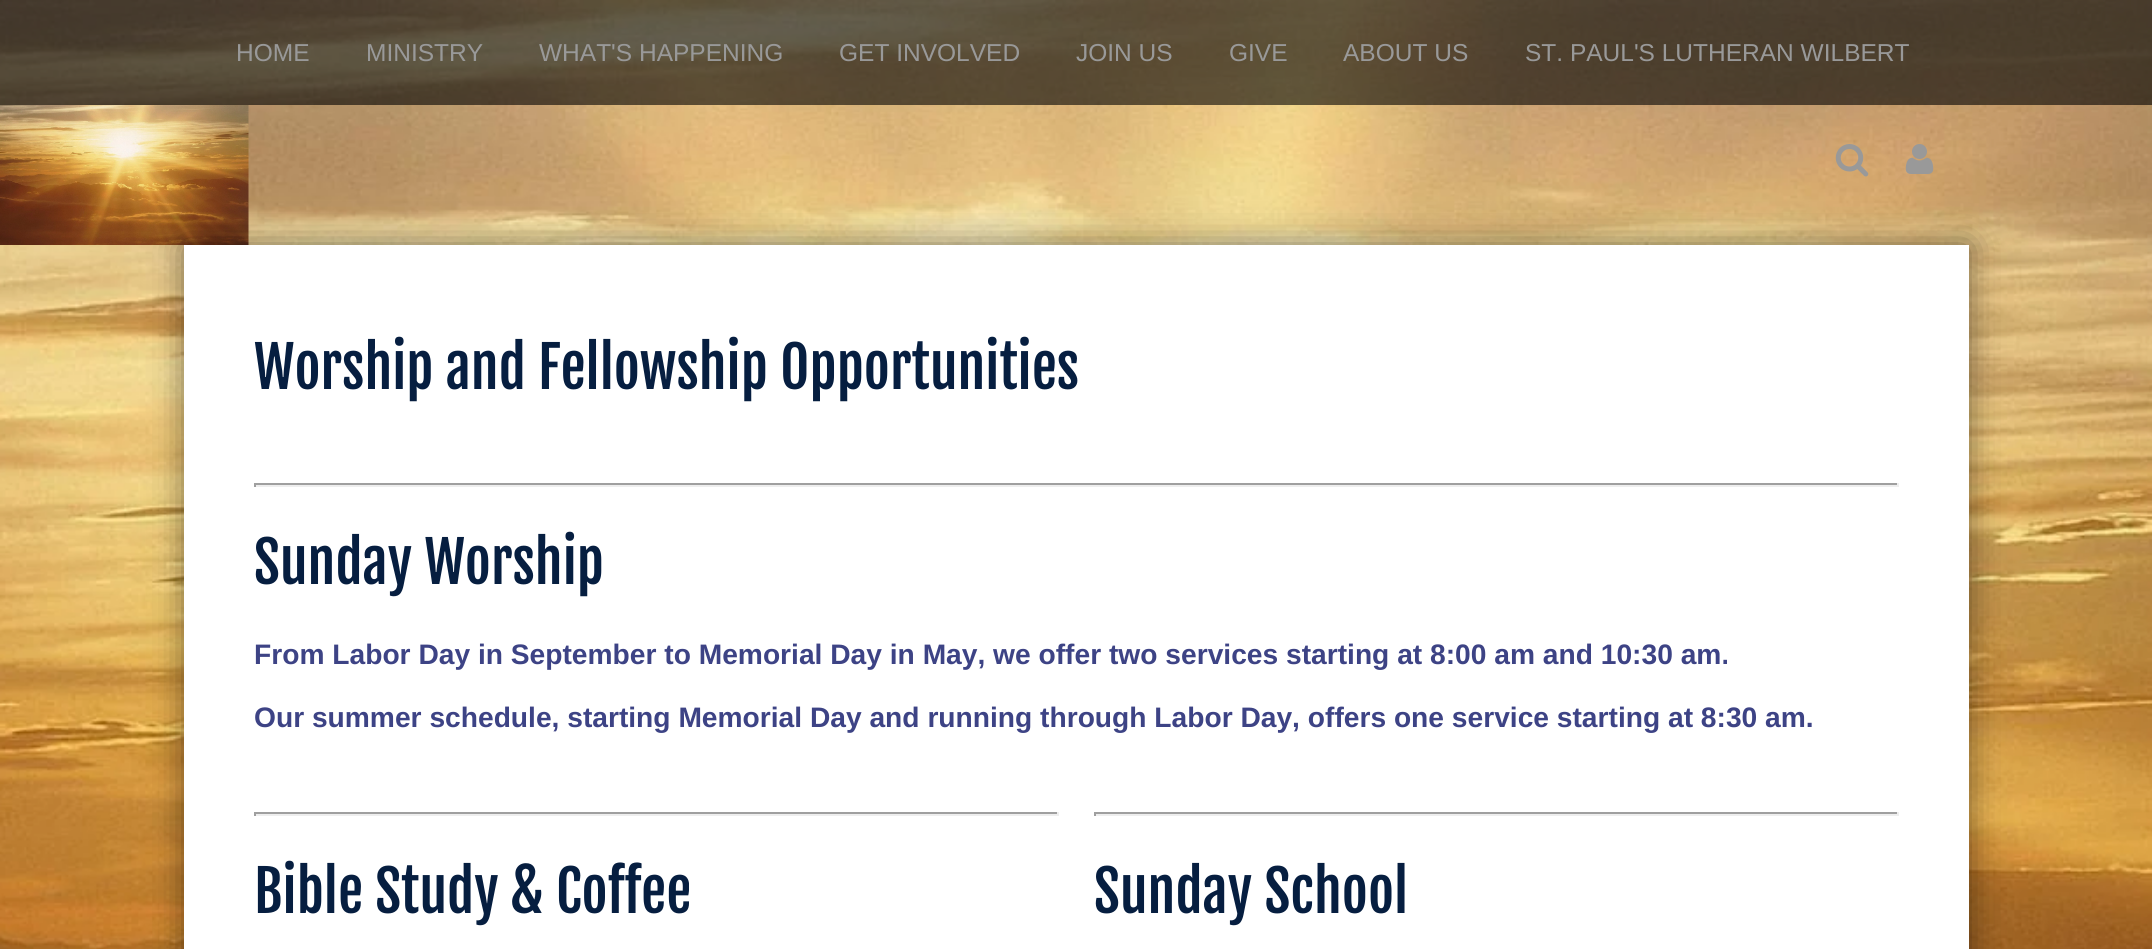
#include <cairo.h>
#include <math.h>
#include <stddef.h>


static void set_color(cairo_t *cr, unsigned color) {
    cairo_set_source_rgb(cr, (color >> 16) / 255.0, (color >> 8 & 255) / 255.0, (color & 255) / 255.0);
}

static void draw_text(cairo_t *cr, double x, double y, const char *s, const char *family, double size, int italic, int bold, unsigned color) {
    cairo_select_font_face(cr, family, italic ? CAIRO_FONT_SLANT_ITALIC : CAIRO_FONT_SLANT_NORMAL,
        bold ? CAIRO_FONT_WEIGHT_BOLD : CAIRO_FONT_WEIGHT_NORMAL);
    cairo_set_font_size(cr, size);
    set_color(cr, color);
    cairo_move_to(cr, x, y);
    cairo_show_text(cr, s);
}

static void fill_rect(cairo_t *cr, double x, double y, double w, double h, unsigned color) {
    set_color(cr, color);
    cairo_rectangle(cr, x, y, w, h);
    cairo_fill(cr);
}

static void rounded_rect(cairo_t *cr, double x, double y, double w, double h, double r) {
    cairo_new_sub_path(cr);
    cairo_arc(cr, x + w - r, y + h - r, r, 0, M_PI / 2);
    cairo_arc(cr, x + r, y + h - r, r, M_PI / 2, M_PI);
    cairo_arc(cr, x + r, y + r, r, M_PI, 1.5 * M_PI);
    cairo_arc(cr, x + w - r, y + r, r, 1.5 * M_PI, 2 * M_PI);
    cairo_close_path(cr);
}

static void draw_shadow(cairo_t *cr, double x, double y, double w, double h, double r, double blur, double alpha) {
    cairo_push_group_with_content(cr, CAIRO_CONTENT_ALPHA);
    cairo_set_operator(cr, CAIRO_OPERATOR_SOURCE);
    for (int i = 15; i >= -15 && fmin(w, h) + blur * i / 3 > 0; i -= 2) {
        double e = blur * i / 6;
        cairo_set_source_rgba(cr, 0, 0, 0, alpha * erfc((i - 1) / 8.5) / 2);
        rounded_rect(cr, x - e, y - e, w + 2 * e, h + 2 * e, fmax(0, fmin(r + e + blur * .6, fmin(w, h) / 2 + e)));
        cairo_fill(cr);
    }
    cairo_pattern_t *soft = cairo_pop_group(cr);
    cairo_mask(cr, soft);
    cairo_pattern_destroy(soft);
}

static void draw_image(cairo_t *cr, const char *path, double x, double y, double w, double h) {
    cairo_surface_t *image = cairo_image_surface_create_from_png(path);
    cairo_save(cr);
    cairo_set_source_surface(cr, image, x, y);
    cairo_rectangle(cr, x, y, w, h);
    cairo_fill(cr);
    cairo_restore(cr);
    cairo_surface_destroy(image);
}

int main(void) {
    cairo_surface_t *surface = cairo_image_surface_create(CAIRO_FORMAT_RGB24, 2152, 949);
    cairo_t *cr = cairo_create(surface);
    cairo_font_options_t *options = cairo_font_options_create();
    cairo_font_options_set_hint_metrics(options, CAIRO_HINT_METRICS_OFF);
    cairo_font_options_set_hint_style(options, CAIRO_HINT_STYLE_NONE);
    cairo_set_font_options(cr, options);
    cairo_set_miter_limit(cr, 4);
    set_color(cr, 0xFFFFFF);
    cairo_paint(cr);
    draw_image(cr, "assets/img1.png", 0, 0, 2152, 949);
    cairo_set_source_rgba(cr, 0, 0, 0, 0.6);
    cairo_rectangle(cr, 0, 0, 2152, 105);
    cairo_fill(cr);
    draw_text(cr, 236, 61, "HOME", "Liberation Sans", 24.5, 0, 0, 0x999999);
    draw_text(cr, 366, 61, "MINISTRY", "Liberation Sans", 24.5, 0, 0, 0x999999);
    draw_text(cr, 539, 61, "WHAT'S HAPPENING", "Liberation Sans", 24.5, 0, 0, 0x999999);
    draw_text(cr, 839, 61, "GET INVOLVED", "Liberation Sans", 24.5, 0, 0, 0x999999);
    draw_text(cr, 1076, 61, "JOIN US", "Liberation Sans", 24.5, 0, 0, 0x999999);
    draw_text(cr, 1229, 61, "GIVE", "Liberation Sans", 24.5, 0, 0, 0x999999);
    draw_text(cr, 1343, 61, "ABOUT US", "Liberation Sans", 24.5, 0, 0, 0x999999);
    draw_text(cr, 1525, 61, "ST. PAUL'S LUTHERAN WILBERT", "Liberation Sans", 24.5, 0, 0, 0x999999);
    draw_image(cr, "assets/img2.png", 1835, 144, 34, 33);
    draw_image(cr, "assets/img3.png", 1905, 144, 29, 30);
    draw_image(cr, "assets/img4.png", 0, 105, 249, 140);
    set_color(cr, 0x000000);
    draw_shadow(cr, 184, 245, 1785, 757, 0, 17.5, 0.5);
    fill_rect(cr, 184, 245, 1785, 704, 0xFFFFFF);
    draw_text(cr, 254, 389, "Worship and Fellowship Opportunities", "Fjalla One", 56.4, 0, 0, 0x061E40);
    fill_rect(cr, 254, 483, 1645, 2, 0x9F9F9F);
    fill_rect(cr, 1897, 483, 2, 4, 0xEEEEEE);
    fill_rect(cr, 254, 485, 1645, 2, 0xEEEEEE);
    fill_rect(cr, 254, 483, 2, 4, 0x9F9F9F);
    draw_text(cr, 254, 584, "Sunday Worship", "Fjalla One", 56.4, 0, 0, 0x061E40);
    draw_text(cr, 254, 664, "From Labor Day in September to Memorial Day in May, we offer two services starting at 8:00 am and 10:30 am.", "Liberation Sans", 28.18, 0, 1, 0x3D4385);
    draw_text(cr, 254, 727, "Our summer schedule, starting Memorial Day and running through Labor Day, offers one service starting at 8:30 am.", "Liberation Sans", 28.18, 0, 1, 0x3D4385);
    fill_rect(cr, 254, 812, 805, 2, 0x9F9F9F);
    fill_rect(cr, 1057, 812, 2, 4, 0xEEEEEE);
    fill_rect(cr, 254, 814, 805, 2, 0xEEEEEE);
    fill_rect(cr, 254, 812, 2, 4, 0x9F9F9F);
    draw_text(cr, 254, 913, "Bible Study & Coffee", "Fjalla One", 56.4, 0, 0, 0x061E40);
    fill_rect(cr, 1094, 812, 805, 2, 0x9F9F9F);
    fill_rect(cr, 1897, 812, 2, 4, 0xEEEEEE);
    fill_rect(cr, 1094, 814, 805, 2, 0xEEEEEE);
    fill_rect(cr, 1094, 812, 2, 4, 0x9F9F9F);
    draw_text(cr, 1094, 913, "Sunday School", "Fjalla One", 56.4, 0, 0, 0x061E40);
    cairo_surface_write_to_png(surface, "output.png");
    cairo_font_options_destroy(options);
    cairo_destroy(cr);
    cairo_surface_destroy(surface);
    return 0;
}
